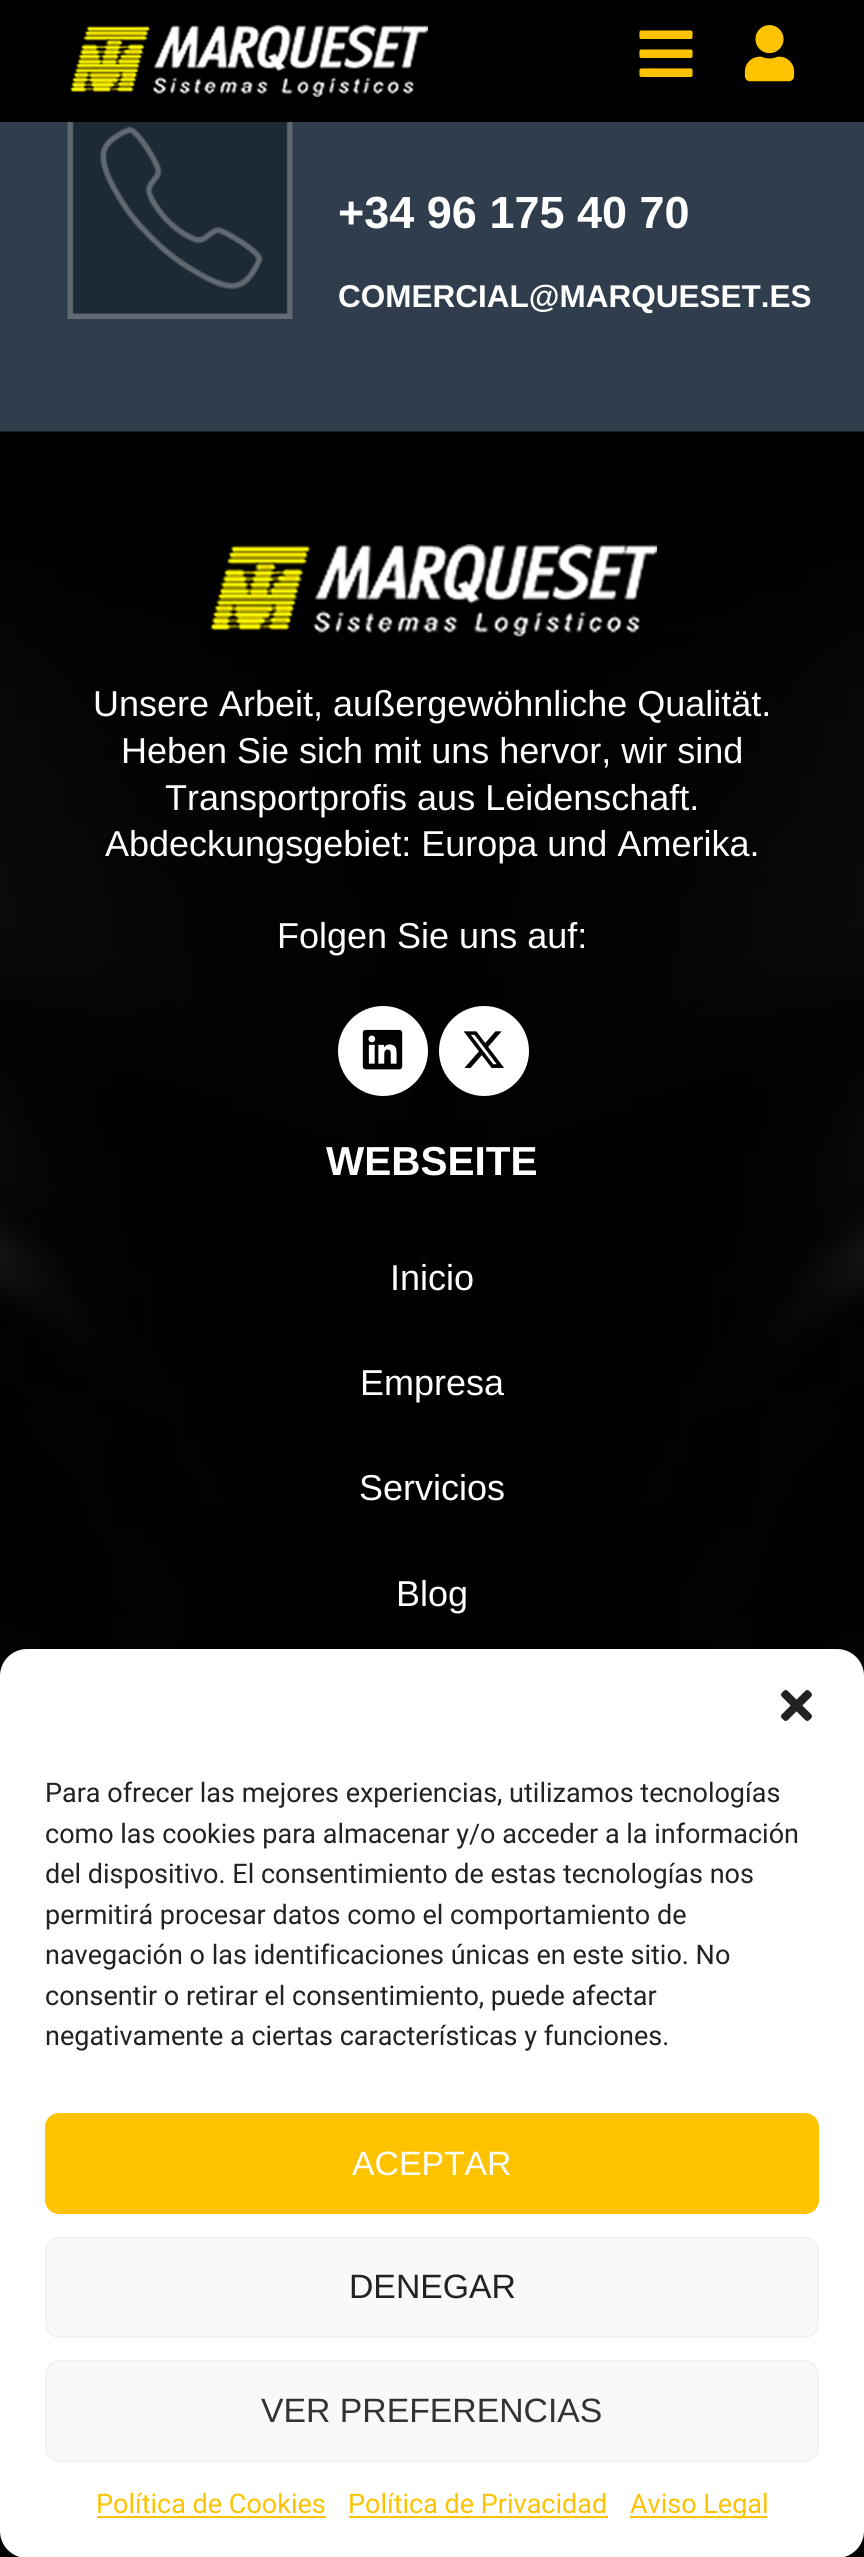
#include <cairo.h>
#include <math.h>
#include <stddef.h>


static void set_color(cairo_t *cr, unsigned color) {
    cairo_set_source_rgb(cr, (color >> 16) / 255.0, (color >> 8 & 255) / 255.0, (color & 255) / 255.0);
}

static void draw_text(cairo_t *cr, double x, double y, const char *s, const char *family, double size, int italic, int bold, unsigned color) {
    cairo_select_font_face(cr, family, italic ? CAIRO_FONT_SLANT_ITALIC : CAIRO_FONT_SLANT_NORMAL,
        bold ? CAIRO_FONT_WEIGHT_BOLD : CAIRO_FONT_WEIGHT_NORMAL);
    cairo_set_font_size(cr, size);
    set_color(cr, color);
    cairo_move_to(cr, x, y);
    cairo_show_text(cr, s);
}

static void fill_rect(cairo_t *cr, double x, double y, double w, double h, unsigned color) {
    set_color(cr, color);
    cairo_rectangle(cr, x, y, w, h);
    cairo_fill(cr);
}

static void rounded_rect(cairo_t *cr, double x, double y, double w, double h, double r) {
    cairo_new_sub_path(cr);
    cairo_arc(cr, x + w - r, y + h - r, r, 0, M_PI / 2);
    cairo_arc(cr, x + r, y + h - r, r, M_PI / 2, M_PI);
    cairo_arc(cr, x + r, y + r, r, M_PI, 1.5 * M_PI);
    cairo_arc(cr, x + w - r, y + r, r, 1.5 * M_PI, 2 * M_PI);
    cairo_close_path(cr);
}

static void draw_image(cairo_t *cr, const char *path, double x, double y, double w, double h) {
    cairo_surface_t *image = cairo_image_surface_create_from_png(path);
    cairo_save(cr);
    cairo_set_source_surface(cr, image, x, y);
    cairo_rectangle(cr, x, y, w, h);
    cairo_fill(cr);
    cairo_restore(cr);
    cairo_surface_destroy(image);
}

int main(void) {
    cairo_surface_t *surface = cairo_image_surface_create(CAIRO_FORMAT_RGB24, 864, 2557);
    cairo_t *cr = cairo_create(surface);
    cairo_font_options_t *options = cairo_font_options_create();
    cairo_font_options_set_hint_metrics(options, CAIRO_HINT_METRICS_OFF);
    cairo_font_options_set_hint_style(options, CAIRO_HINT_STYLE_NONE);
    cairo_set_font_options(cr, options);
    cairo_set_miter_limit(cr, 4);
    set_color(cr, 0x2F3D4C);
    cairo_paint(cr);
    fill_rect(cr, 0, 0, 864, 122, 0x000000);
    draw_image(cr, "assets/img1.png", 70, 24, 358, 73);
    draw_image(cr, "assets/img2.png", 639, 30, 54, 47);
    draw_image(cr, "assets/img3.png", 744, 25, 51, 57);
    draw_image(cr, "assets/img4.png", 67, 122, 226, 197);
    draw_text(cr, 338, 228, "+34 96 175 40 70", "Liberation Sans", 45, 0, 1, 0xFFFFFF);
    draw_text(cr, 338, 307, "COMERCIAL@MARQUESET.ES", "Liberation Sans", 31.5, 0, 1, 0xFFFFFF);
    draw_image(cr, "assets/img5.png", 0, 431, 864, 2126);
    draw_image(cr, "assets/img6.png", 210, 544, 447, 93);
    draw_text(cr, 93, 716, "Unsere Arbeit, außergewöhnliche Qualität.", "Liberation Sans", 36, 0, 0, 0xFFFFFF);
    draw_text(cr, 121, 763, "Heben Sie sich mit uns hervor, wir sind", "Liberation Sans", 36, 0, 0, 0xFFFFFF);
    draw_text(cr, 165, 810, "Transportprofis aus Leidenschaft.", "Liberation Sans", 36, 0, 0, 0xFFFFFF);
    draw_text(cr, 105, 856, "Abdeckungsgebiet: Europa und Amerika.", "Liberation Sans", 36, 0, 0, 0xFFFFFF);
    draw_text(cr, 277, 948, "Folgen Sie uns auf:", "Liberation Sans", 36, 0, 0, 0xFFFFFF);
    cairo_new_path(cr);
    cairo_arc(cr, 383, 1051, 45, 0, 2 * M_PI);
    cairo_fill(cr);
    draw_image(cr, "assets/img7.png", 362, 1029, 41, 41);
    cairo_arc(cr, 484, 1051, 45, 0, 2 * M_PI);
    cairo_fill(cr);
    draw_image(cr, "assets/img8.png", 463, 1031, 41, 37);
    draw_text(cr, 326, 1175, "WEBSEITE", "Liberation Sans", 40.5, 0, 1, 0xFFFFFF);
    draw_text(cr, 390, 1290, "Inicio", "Liberation Sans", 36, 0, 0, 0xFFFFFF);
    draw_text(cr, 360, 1395, "Empresa", "Liberation Sans", 36, 0, 0, 0xFFFFFF);
    draw_text(cr, 359, 1500, "Servicios", "Liberation Sans", 36, 0, 0, 0xFFFFFF);
    draw_text(cr, 396, 1606, "Blog", "Liberation Sans", 36, 0, 0, 0xFFFFFF);
    rounded_rect(cr, 0, 1649, 864, 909, 27);
    cairo_fill(cr);
    draw_image(cr, "assets/img9.png", 781, 1690, 31, 31);
    draw_text(cr, 45, 1802, "Para ofrecer las mejores experiencias, utilizamos tecnologías", "Roboto", 27, 0, 0, 0x222222);
    draw_text(cr, 45, 1843, "como las cookies para almacenar y/o acceder a la información", "Roboto", 27, 0, 0, 0x222222);
    draw_text(cr, 45, 1883, "del dispositivo. El consentimiento de estas tecnologías nos", "Roboto", 27, 0, 0, 0x222222);
    draw_text(cr, 45, 1924, "permitirá procesar datos como el comportamiento de", "Roboto", 27, 0, 0, 0x222222);
    draw_text(cr, 45, 1964, "navegación o las identificaciones únicas en este sitio. No", "Roboto", 27, 0, 0, 0x222222);
    draw_text(cr, 45, 2005, "consentir o retirar el consentimiento, puede afectar", "Roboto", 27, 0, 0, 0x222222);
    draw_text(cr, 45, 2045, "negativamente a ciertas características y funciones.", "Roboto", 27, 0, 0, 0x222222);
    set_color(cr, 0xFDC300);
    rounded_rect(cr, 46, 2114, 772, 99, 13);
    cairo_fill_preserve(cr);
    cairo_stroke(cr);
    draw_text(cr, 352, 2175, "ACEPTAR", "Liberation Sans", 33.75, 0, 0, 0xFFFFFF);
    set_color(cr, 0xF9F9F9);
    rounded_rect(cr, 46, 2238, 772, 99, 13);
    cairo_fill_preserve(cr);
    set_color(cr, 0xF2F2F2);
    cairo_stroke(cr);
    draw_text(cr, 349, 2298, "DENEGAR", "Liberation Sans", 33.75, 0, 0, 0x222222);
    set_color(cr, 0xF9F9F9);
    rounded_rect(cr, 46, 2361, 772, 100, 13);
    cairo_fill_preserve(cr);
    set_color(cr, 0xF2F2F2);
    cairo_stroke(cr);
    draw_text(cr, 261, 2422, "VER PREFERENCIAS", "Liberation Sans", 33.75, 0, 0, 0x333333);
    draw_text(cr, 96, 2513, "Política de Cookies", "Roboto", 27, 0, 0, 0xFDC300);
    fill_rect(cr, 97, 2516, 229, 2, 0xFDC300);
    draw_text(cr, 348, 2513, "Política de Privacidad", "Roboto", 27, 0, 0, 0xFDC300);
    fill_rect(cr, 349, 2516, 259, 2, 0xFDC300);
    fill_rect(cr, 630, 2516, 137, 2, 0xFDC300);
    draw_text(cr, 630, 2513, "Aviso Legal", "Roboto", 27, 0, 0, 0xFDC300);
    cairo_surface_write_to_png(surface, "output.png");
    cairo_font_options_destroy(options);
    cairo_destroy(cr);
    cairo_surface_destroy(surface);
    return 0;
}
